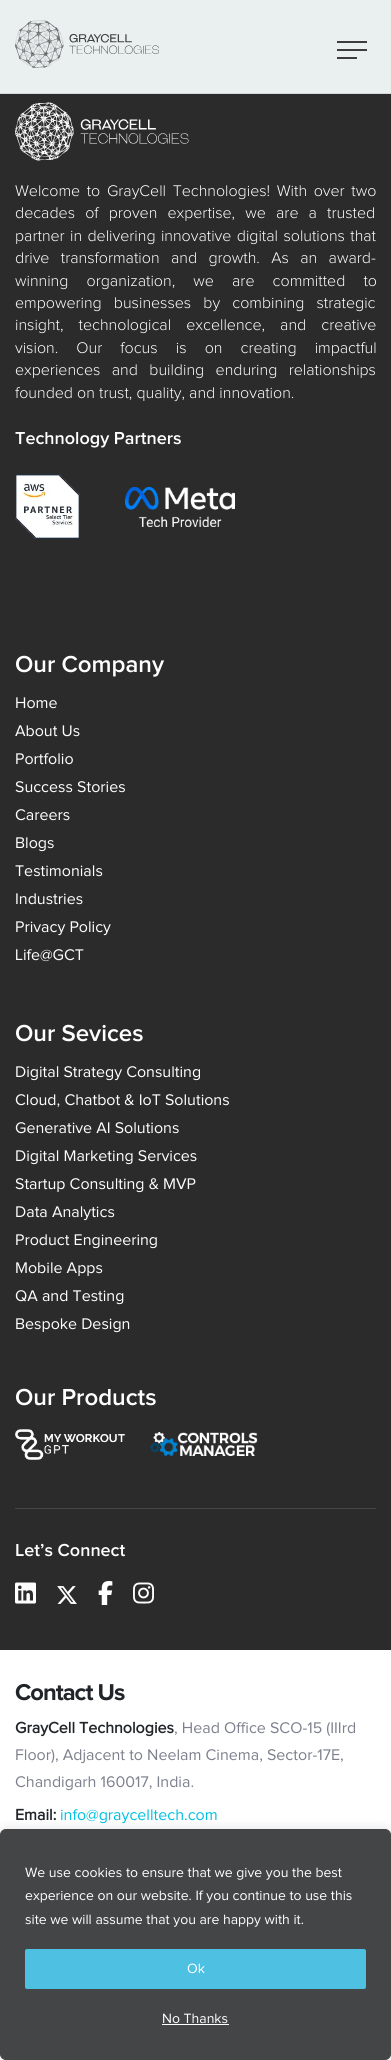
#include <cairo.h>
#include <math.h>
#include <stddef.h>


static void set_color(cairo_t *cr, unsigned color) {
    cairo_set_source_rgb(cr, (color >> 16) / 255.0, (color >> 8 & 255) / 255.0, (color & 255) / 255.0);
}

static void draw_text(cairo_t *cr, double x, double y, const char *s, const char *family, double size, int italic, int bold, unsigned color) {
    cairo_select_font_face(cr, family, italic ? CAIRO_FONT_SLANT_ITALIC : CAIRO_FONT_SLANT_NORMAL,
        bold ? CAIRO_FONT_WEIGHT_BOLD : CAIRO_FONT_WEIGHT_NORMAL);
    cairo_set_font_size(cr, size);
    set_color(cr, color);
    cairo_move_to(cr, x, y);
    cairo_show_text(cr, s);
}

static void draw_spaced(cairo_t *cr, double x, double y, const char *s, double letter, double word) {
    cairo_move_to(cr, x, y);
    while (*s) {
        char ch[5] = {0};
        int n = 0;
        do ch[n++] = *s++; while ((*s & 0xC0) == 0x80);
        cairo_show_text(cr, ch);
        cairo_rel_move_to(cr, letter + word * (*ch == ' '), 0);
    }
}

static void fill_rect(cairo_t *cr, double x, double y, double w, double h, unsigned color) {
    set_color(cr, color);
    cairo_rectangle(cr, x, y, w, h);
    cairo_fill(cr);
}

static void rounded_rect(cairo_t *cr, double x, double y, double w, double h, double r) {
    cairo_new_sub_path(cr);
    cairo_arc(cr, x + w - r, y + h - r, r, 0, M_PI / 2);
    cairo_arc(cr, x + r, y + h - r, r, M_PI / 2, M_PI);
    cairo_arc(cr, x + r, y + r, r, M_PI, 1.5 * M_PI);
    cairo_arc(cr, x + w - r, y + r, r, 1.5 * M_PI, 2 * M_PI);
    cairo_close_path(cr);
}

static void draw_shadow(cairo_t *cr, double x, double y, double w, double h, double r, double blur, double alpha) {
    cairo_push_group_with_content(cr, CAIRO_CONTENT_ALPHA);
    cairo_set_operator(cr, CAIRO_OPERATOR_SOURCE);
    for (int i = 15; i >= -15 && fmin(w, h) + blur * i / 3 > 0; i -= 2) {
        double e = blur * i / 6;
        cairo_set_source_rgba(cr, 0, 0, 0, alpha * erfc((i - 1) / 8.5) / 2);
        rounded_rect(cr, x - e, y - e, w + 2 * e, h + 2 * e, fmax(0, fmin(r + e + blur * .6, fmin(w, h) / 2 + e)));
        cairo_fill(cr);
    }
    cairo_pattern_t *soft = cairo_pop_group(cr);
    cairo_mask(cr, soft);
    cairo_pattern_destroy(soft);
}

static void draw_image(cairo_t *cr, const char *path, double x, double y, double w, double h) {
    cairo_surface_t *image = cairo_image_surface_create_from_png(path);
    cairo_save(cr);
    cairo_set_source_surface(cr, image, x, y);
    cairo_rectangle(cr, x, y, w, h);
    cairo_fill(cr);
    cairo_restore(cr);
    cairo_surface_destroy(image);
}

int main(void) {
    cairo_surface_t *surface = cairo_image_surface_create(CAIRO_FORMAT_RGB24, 391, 2060);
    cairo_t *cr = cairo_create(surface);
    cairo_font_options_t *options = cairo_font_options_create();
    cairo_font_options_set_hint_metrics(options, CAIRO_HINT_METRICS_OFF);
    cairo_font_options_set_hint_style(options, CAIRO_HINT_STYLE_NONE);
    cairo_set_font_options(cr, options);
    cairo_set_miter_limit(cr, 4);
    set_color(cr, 0x2B2B2B);
    cairo_paint(cr);
    fill_rect(cr, 0, 0, 391, 93, 0xEAF0F0);
    fill_rect(cr, 0, 93, 391, 1, 0xD7D7D7);
    draw_image(cr, "assets/img1.png", 15, 20, 144, 48);
    fill_rect(cr, 337, 49, 30, 2, 0x3D3D3D);
    fill_rect(cr, 337, 41, 30, 2, 0x3D3D3D);
    fill_rect(cr, 337, 57, 20, 2, 0x3D3D3D);
    draw_image(cr, "assets/img2.png", 15, 102, 174, 59);
    cairo_select_font_face(cr, "Proxima Nova Light", CAIRO_FONT_SLANT_NORMAL, CAIRO_FONT_WEIGHT_NORMAL);
    cairo_set_font_size(cr, 16);
    set_color(cr, 0xFFFFFF);
    draw_spaced(cr, 15, 196, "Welcome to GrayCell Technologies! With over two", 0, 2.5);
    draw_spaced(cr, 15, 218, "decades of proven expertise, we are a trusted", 0, 6);
    draw_spaced(cr, 15, 241, "partner in delivering innovative digital solutions that", 0, 1.25);
    draw_spaced(cr, 15, 263, "drive transformation and growth. As an award-", 0, 7.25);
    draw_spaced(cr, 15, 286, "winning organization, we are committed to", 0, 14);
    draw_spaced(cr, 15, 308, "empowering businesses by combining strategic", 0, 8);
    draw_spaced(cr, 15, 330, "insight, technological excellence, and creative", 0, 11);
    draw_spaced(cr, 15, 353, "vision. Our focus is on creating impactful", 0, 14);
    draw_spaced(cr, 15, 375, "experiences and building enduring relationships", 0, 7.25);
    draw_text(cr, 15, 398, "founded on trust, quality, and innovation.", "Proxima Nova Light", 16, 0, 0, 0xFFFFFF);
    draw_text(cr, 15, 444, "Technology Partners", "Proxima Nova SemiBold", 18, 0, 0, 0xFFFFFF);
    draw_image(cr, "assets/img3.png", 15, 474, 65, 65);
    draw_image(cr, "assets/img4.png", 125, 487, 110, 40);
    draw_text(cr, 15, 672, "Our Company", "Proxima Nova SemiBold", 24, 0, 0, 0xFFFFFF);
    draw_text(cr, 15, 708, "Home", "Proxima Nova", 16, 0, 0, 0xFFFFFF);
    draw_text(cr, 15, 736, "About Us", "Proxima Nova", 16, 0, 0, 0xFFFFFF);
    draw_text(cr, 15, 764, "Portfolio", "Proxima Nova", 16, 0, 0, 0xFFFFFF);
    draw_text(cr, 15, 792, "Success Stories", "Proxima Nova", 16, 0, 0, 0xFFFFFF);
    draw_text(cr, 15, 820, "Careers", "Proxima Nova", 16, 0, 0, 0xFFFFFF);
    draw_text(cr, 15, 848, "Blogs", "Proxima Nova", 16, 0, 0, 0xFFFFFF);
    draw_text(cr, 15, 876, "Testimonials", "Proxima Nova", 16, 0, 0, 0xFFFFFF);
    draw_text(cr, 15, 904, "Industries", "Proxima Nova", 16, 0, 0, 0xFFFFFF);
    draw_text(cr, 15, 932, "Privacy Policy", "Proxima Nova", 16, 0, 0, 0xFFFFFF);
    draw_text(cr, 15, 960, "Life@GCT", "Proxima Nova", 16, 0, 0, 0xFFFFFF);
    draw_text(cr, 15, 1041, "Our Sevices", "Proxima Nova SemiBold", 24, 0, 0, 0xFFFFFF);
    draw_text(cr, 15, 1077, "Digital Strategy Consulting", "Proxima Nova", 16, 0, 0, 0xFFFFFF);
    draw_text(cr, 15, 1105, "Cloud, Chatbot & IoT Solutions", "Proxima Nova", 16, 0, 0, 0xFFFFFF);
    draw_text(cr, 15, 1133, "Generative AI Solutions", "Proxima Nova", 16, 0, 0, 0xFFFFFF);
    draw_text(cr, 15, 1161, "Digital Marketing Services", "Proxima Nova", 16, 0, 0, 0xFFFFFF);
    draw_text(cr, 15, 1189, "Startup Consulting & MVP", "Proxima Nova", 16, 0, 0, 0xFFFFFF);
    draw_text(cr, 15, 1217, "Data Analytics", "Proxima Nova", 16, 0, 0, 0xFFFFFF);
    draw_text(cr, 15, 1245, "Product Engineering", "Proxima Nova", 16, 0, 0, 0xFFFFFF);
    draw_text(cr, 15, 1273, "Mobile Apps", "Proxima Nova", 16, 0, 0, 0xFFFFFF);
    draw_text(cr, 15, 1301, "QA and Testing", "Proxima Nova", 16, 0, 0, 0xFFFFFF);
    draw_text(cr, 15, 1329, "Bespoke Design", "Proxima Nova", 16, 0, 0, 0xFFFFFF);
    draw_text(cr, 15, 1405, "Our Products", "Proxima Nova SemiBold", 24, 0, 0, 0xFFFFFF);
    fill_rect(cr, 15, 1508, 361, 1, 0x464646);
    draw_image(cr, "assets/img5.png", 15, 1429, 110, 31);
    draw_image(cr, "assets/img6.png", 150, 1432, 108, 24);
    draw_text(cr, 15, 1556, "Let’s Connect", "Proxima Nova SemiBold", 18, 0, 0, 0xFFFFFF);
    draw_image(cr, "assets/img7.png", 15, 1582, 21, 22);
    draw_image(cr, "assets/img8.png", 57, 1586, 20, 18);
    draw_image(cr, "assets/img9.png", 98, 1581, 15, 24);
    draw_image(cr, "assets/img10.png", 133, 1582, 21, 22);
    fill_rect(cr, 0, 1650, 391, 410, 0xFFFFFF);
    cairo_select_font_face(cr, "Proxima Nova", CAIRO_FONT_SLANT_NORMAL, CAIRO_FONT_WEIGHT_BOLD);
    cairo_set_font_size(cr, 22);
    set_color(cr, 0x212529);
    draw_spaced(cr, 15, 1700, "Contact Us", -1, 0);
    draw_text(cr, 15, 1733, "GrayCell Technologies", "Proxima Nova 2", 16, 0, 1, 0x212529);
    draw_text(cr, 174, 1733, ", Head Office SCO-15 (IIIrd", "Proxima Nova", 16, 0, 0, 0x7D808D);
    draw_text(cr, 15, 1760, "Floor), Adjacent to Neelam Cinema, Sector-17E,", "Proxima Nova", 16, 0, 0, 0x7D808D);
    draw_text(cr, 15, 1787, "Chandigarh 160017, India.", "Proxima Nova", 16, 0, 0, 0x7D808D);
    draw_text(cr, 15, 1820, "Email:", "Proxima Nova 2", 16, 0, 1, 0x212529);
    draw_text(cr, 60, 1820, "info@graycelltech.com", "Proxima Nova", 16, 0, 0, 0x00C1E2);
    set_color(cr, 0xACABAB);
    draw_shadow(cr, 0, 1828, 391, 231, 6, 5, 0.3);
    set_color(cr, 0x444547);
    rounded_rect(cr, 0.5, 1829.5, 390, 230, 5.5);
    cairo_fill_preserve(cr);
    cairo_set_line_width(cr, 1);
    cairo_stroke(cr);
    draw_text(cr, 25, 1877, "We use cookies to ensure that we give you the best", "Proxima Nova", 14, 0, 0, 0xFFFFFF);
    draw_text(cr, 25, 1900, "experience on our website. If you continue to use this", "Proxima Nova", 14, 0, 0, 0xFFFFFF);
    draw_text(cr, 25, 1924, "site we will assume that you are happy with it.", "Proxima Nova", 14, 0, 0, 0xFFFFFF);
    set_color(cr, 0x4EC1E3);
    rounded_rect(cr, 25, 1949, 341, 40, 2);
    cairo_fill(cr);
    draw_text(cr, 187, 1973, "Ok", "Proxima Nova", 14, 0, 0, 0xFFFFFF);
    draw_text(cr, 162, 2023, "No Thanks", "Proxima Nova", 14, 0, 0, 0xFFFFFF);
    fill_rect(cr, 162, 2024, 67, 1, 0xFFFFFF);
    cairo_surface_write_to_png(surface, "output.png");
    cairo_font_options_destroy(options);
    cairo_destroy(cr);
    cairo_surface_destroy(surface);
    return 0;
}
